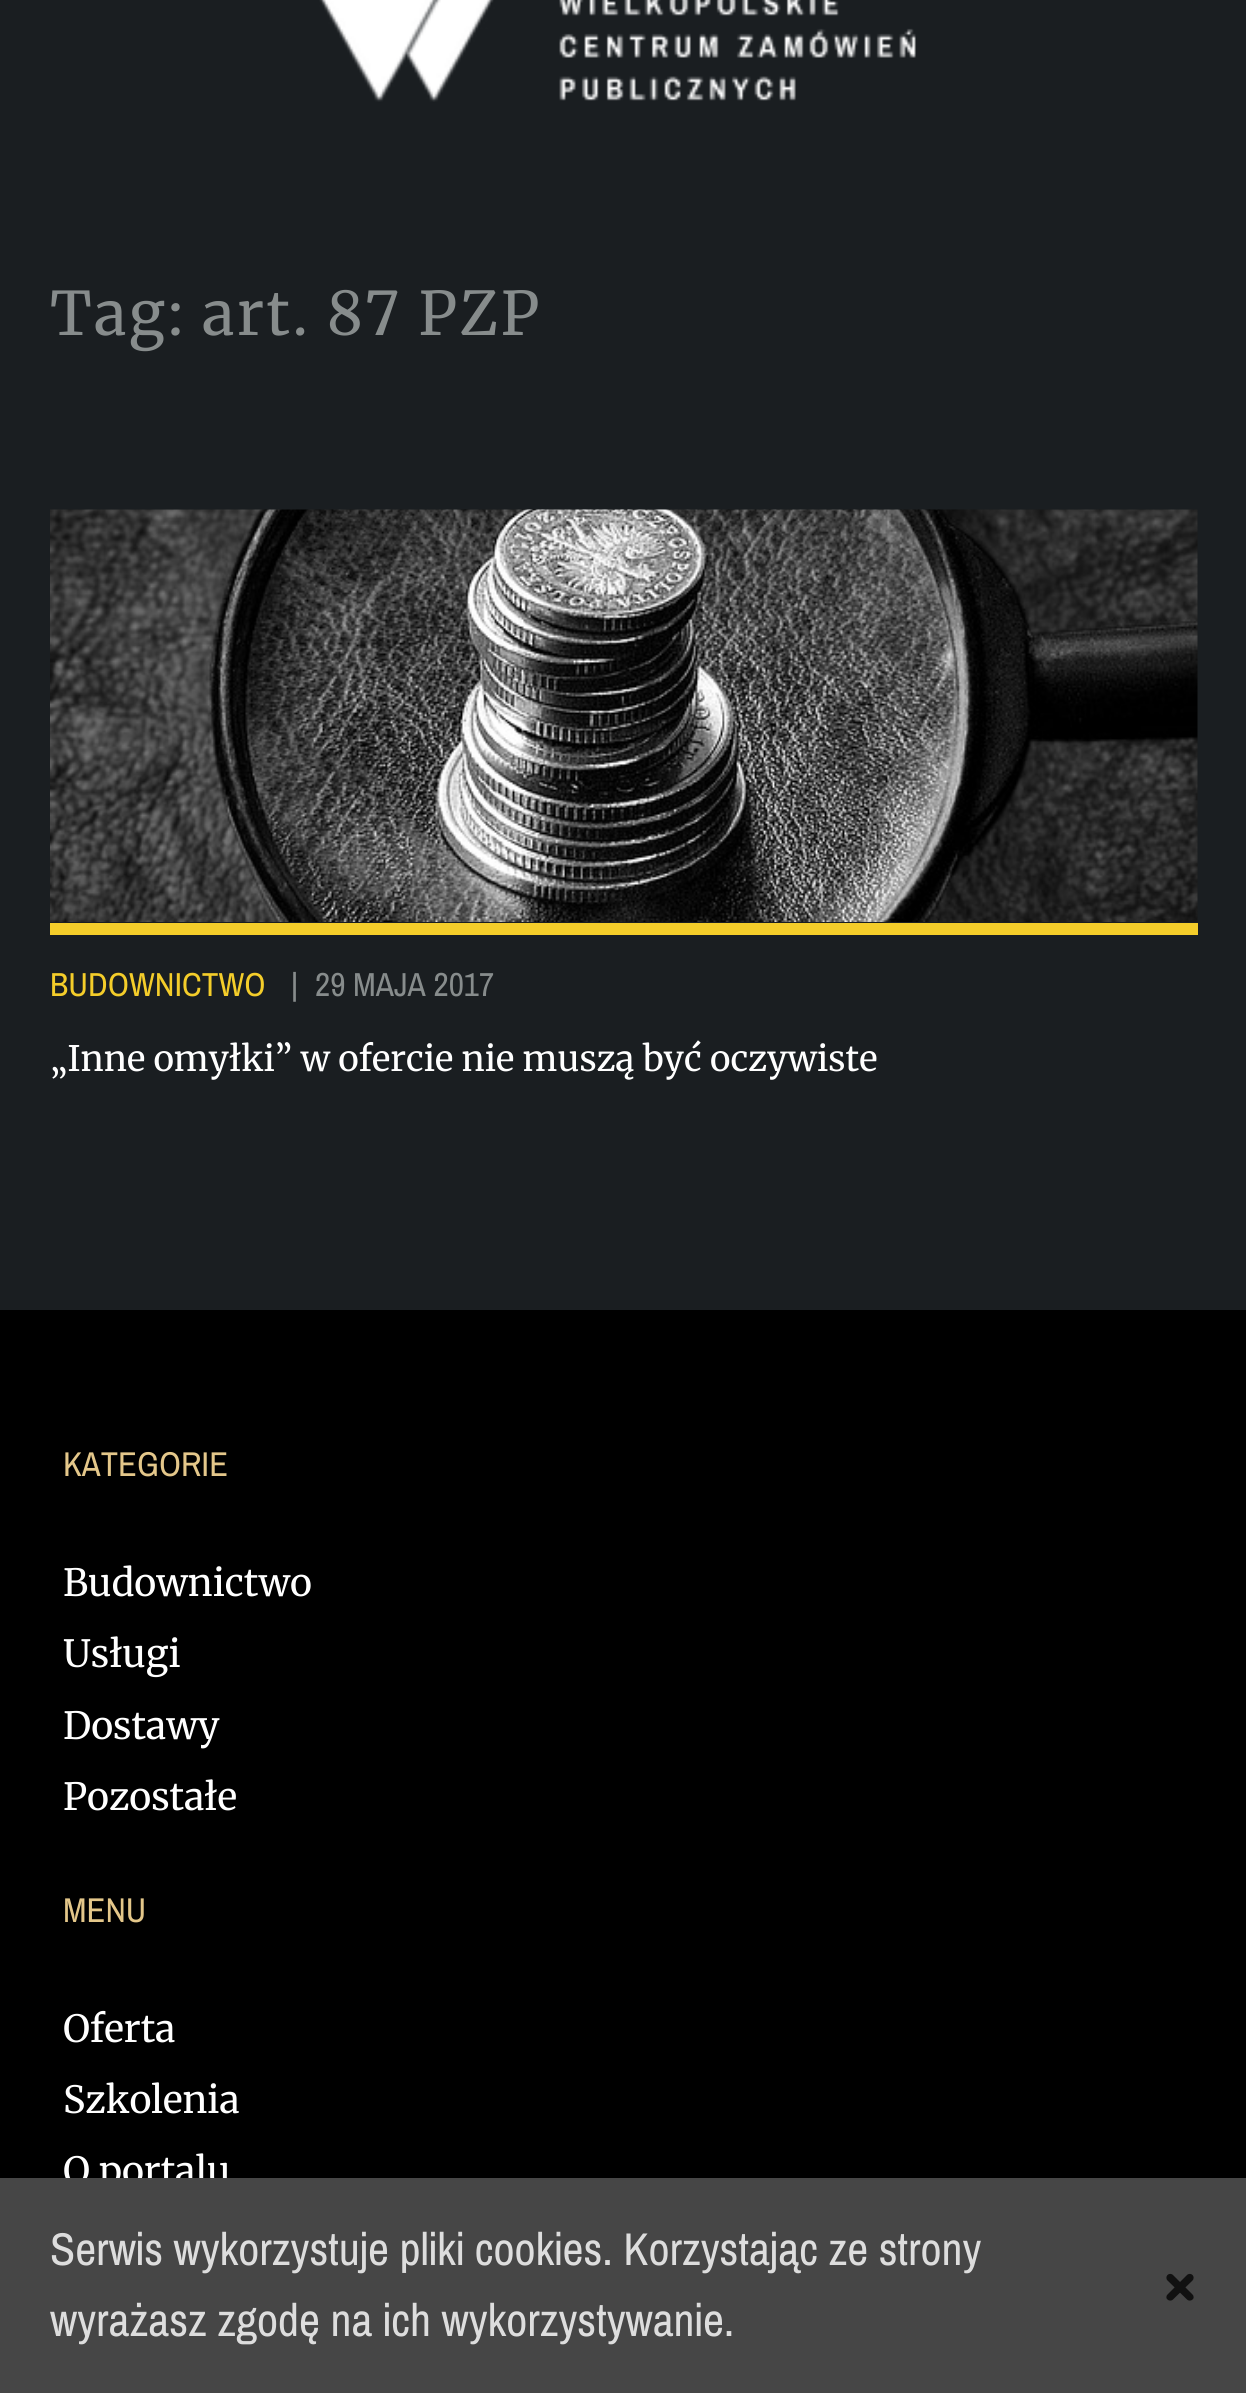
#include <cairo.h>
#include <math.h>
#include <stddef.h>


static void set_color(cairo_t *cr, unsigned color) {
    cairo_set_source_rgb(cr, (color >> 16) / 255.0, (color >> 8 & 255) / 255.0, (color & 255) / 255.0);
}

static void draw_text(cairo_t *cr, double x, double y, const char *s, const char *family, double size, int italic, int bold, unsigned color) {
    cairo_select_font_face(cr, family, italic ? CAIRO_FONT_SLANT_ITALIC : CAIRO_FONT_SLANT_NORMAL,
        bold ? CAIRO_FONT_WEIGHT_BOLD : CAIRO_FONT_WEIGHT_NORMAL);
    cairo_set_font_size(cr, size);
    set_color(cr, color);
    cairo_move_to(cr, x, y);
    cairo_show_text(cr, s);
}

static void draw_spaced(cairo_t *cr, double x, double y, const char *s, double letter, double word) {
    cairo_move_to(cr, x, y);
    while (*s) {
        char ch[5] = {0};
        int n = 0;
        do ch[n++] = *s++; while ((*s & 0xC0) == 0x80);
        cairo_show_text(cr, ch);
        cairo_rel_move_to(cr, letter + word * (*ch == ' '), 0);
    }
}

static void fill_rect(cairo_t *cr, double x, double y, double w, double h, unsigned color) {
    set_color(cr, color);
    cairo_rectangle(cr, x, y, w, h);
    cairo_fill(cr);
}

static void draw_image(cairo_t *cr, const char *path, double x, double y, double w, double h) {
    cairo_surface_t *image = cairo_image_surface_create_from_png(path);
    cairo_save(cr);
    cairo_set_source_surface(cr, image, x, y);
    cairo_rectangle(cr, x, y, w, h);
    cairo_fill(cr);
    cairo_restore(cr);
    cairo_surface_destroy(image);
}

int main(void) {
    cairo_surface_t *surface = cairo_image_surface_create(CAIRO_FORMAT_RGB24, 1246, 2393);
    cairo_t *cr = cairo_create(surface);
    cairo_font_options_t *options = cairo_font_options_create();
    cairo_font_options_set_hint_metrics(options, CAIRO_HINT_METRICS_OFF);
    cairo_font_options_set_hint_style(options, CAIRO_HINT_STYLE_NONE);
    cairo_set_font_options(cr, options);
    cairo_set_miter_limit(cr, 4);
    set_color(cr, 0x1A1E21);
    cairo_paint(cr);
    draw_image(cr, "assets/img1.png", 319, 0, 597, 102);
    cairo_select_font_face(cr, "Merriweather", CAIRO_FONT_SLANT_NORMAL, CAIRO_FONT_WEIGHT_NORMAL);
    cairo_set_font_size(cr, 60);
    set_color(cr, 0x878C8C);
    draw_spaced(cr, 50, 335, "Tag: art. 87 PZP", 2.5, 0);
    fill_rect(cr, 50, 923, 1148, 12, 0xF4CD2A);
    draw_image(cr, "assets/img2.png", 50, 509, 1148, 413);
    draw_text(cr, 50, 996, "BUDOWNICTWO", "Pragati Narrow", 36.25, 0, 0, 0xF4CD2A);
    draw_text(cr, 291, 996, "|", "Pragati Narrow", 36.25, 0, 0, 0x878C8C);
    draw_text(cr, 315, 996, "29 MAJA 2017", "Pragati Narrow", 36.25, 0, 0, 0x878C8C);
    draw_text(cr, 50, 1071, "„Inne omyłki” w ofercie nie muszą być oczywiste", "Merriweather", 35, 0, 0, 0xFFFFFF);
    fill_rect(cr, 0, 1310, 1246, 868, 0x000000);
    draw_text(cr, 63, 1476, "KATEGORIE", "Pragati Narrow", 37.5, 0, 0, 0xE4C78A);
    draw_text(cr, 63, 1596, "Budownictwo", "Merriweather", 37.5, 0, 0, 0xFFFFFF);
    draw_text(cr, 63, 1667, "Usługi", "Merriweather", 37.5, 0, 0, 0xFFFFFF);
    draw_text(cr, 63, 1739, "Dostawy", "Merriweather", 37.5, 0, 0, 0xFFFFFF);
    draw_text(cr, 63, 1810, "Pozostałe", "Merriweather", 37.5, 0, 0, 0xFFFFFF);
    draw_text(cr, 63, 1922, "MENU", "Pragati Narrow", 37.5, 0, 0, 0xE4C78A);
    draw_text(cr, 63, 2042, "Oferta", "Merriweather", 37.5, 0, 0, 0xFFFFFF);
    draw_text(cr, 63, 2113, "Szkolenia", "Merriweather", 37.5, 0, 0, 0xFFFFFF);
    draw_text(cr, 63, 2184, "O portalu", "Merriweather", 37.5, 0, 0, 0xFFFFFF);
    fill_rect(cr, 0, 2178, 1246, 215, 0x464646);
    draw_text(cr, 50, 2265, "Serwis wykorzystuje pliki cookies. Korzystając ze strony", "Pragati Narrow", 50, 0, 0, 0xDDDDDD);
    draw_text(cr, 50, 2336, "wyrażasz zgodę na ich wykorzystywanie.", "Pragati Narrow", 50, 0, 0, 0xDDDDDD);
    set_color(cr, 0x111111);
    cairo_new_path(cr);
    cairo_move_to(cr, 1173, 2275);
    cairo_line_to(cr, 1192.5, 2294.5);
    cairo_curve_to(cr, 1194, 2296, 1194, 2298.5, 1192.5, 2299.5);
    cairo_curve_to(cr, 1191, 2301, 1188.5, 2301, 1187, 2299.5);
    cairo_line_to(cr, 1167.5, 2280.5);
    cairo_curve_to(cr, 1166, 2279, 1166, 2276.5, 1167.5, 2275);
    cairo_curve_to(cr, 1169, 2273.5, 1171.5, 2273.5, 1173, 2275);
    cairo_close_path(cr);
    cairo_fill(cr);
    cairo_new_path(cr);
    cairo_move_to(cr, 1167.5, 2294.5);
    cairo_line_to(cr, 1187, 2275);
    cairo_curve_to(cr, 1188.5, 2273.5, 1191, 2273.5, 1192.5, 2275);
    cairo_curve_to(cr, 1194, 2276.5, 1194, 2279, 1192.5, 2280.5);
    cairo_line_to(cr, 1173, 2299.5);
    cairo_curve_to(cr, 1171.5, 2301, 1169, 2301, 1167.5, 2299.5);
    cairo_curve_to(cr, 1166, 2298.5, 1166, 2296, 1167.5, 2294.5);
    cairo_close_path(cr);
    cairo_fill(cr);
    cairo_surface_write_to_png(surface, "output.png");
    cairo_font_options_destroy(options);
    cairo_destroy(cr);
    cairo_surface_destroy(surface);
    return 0;
}
